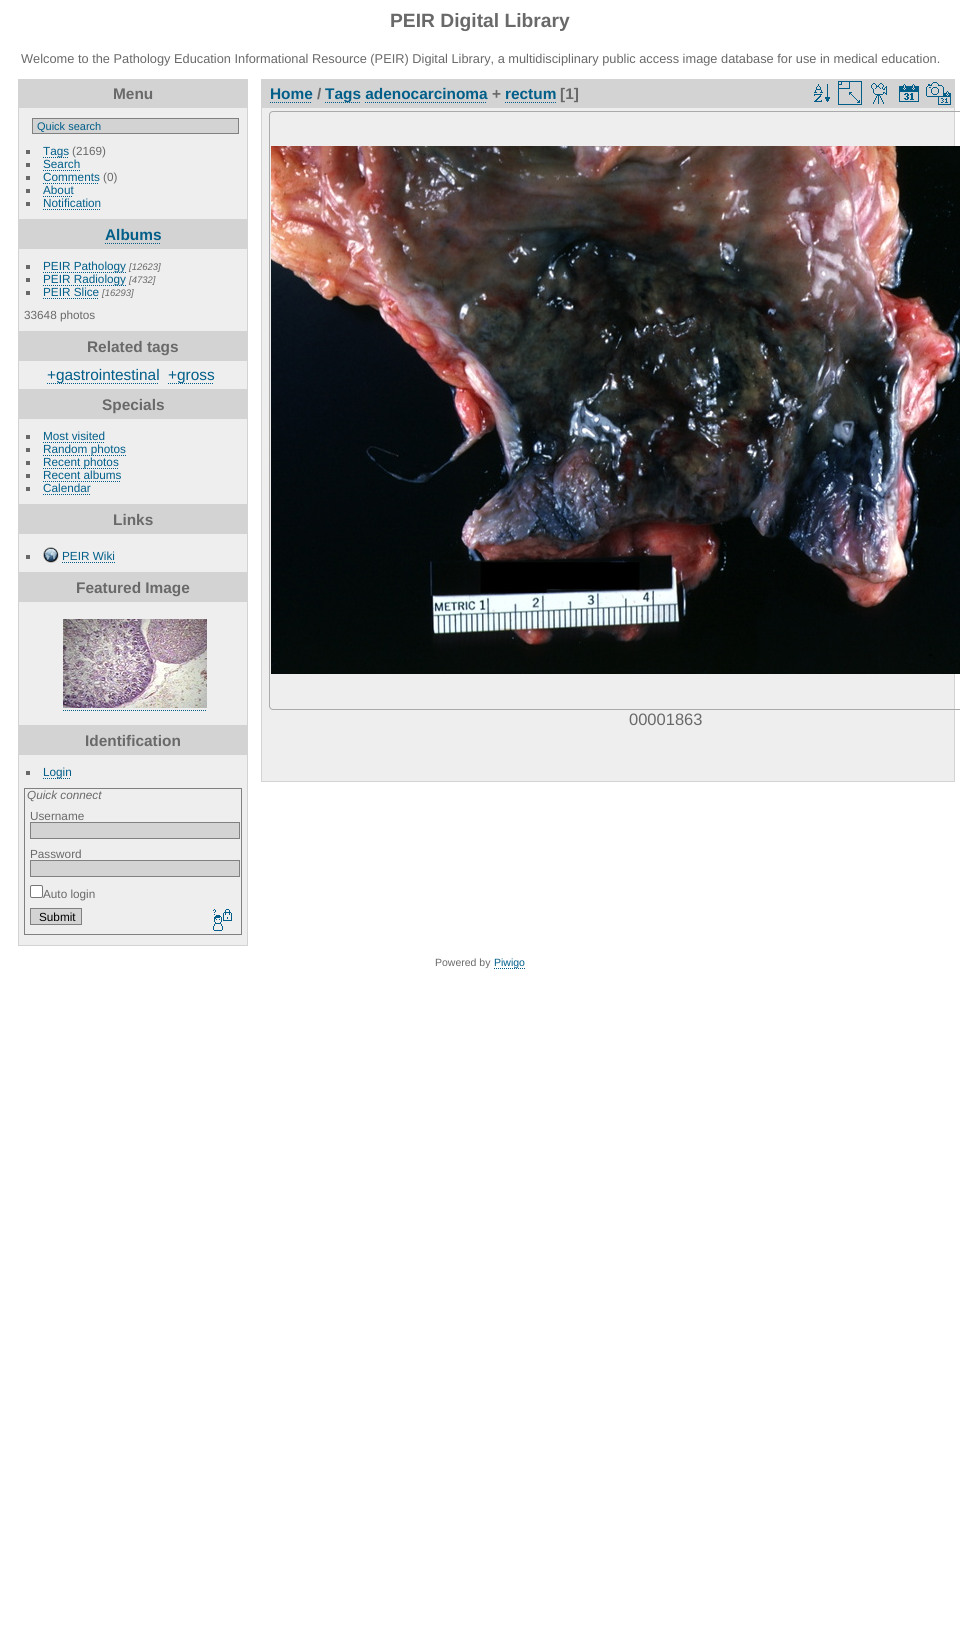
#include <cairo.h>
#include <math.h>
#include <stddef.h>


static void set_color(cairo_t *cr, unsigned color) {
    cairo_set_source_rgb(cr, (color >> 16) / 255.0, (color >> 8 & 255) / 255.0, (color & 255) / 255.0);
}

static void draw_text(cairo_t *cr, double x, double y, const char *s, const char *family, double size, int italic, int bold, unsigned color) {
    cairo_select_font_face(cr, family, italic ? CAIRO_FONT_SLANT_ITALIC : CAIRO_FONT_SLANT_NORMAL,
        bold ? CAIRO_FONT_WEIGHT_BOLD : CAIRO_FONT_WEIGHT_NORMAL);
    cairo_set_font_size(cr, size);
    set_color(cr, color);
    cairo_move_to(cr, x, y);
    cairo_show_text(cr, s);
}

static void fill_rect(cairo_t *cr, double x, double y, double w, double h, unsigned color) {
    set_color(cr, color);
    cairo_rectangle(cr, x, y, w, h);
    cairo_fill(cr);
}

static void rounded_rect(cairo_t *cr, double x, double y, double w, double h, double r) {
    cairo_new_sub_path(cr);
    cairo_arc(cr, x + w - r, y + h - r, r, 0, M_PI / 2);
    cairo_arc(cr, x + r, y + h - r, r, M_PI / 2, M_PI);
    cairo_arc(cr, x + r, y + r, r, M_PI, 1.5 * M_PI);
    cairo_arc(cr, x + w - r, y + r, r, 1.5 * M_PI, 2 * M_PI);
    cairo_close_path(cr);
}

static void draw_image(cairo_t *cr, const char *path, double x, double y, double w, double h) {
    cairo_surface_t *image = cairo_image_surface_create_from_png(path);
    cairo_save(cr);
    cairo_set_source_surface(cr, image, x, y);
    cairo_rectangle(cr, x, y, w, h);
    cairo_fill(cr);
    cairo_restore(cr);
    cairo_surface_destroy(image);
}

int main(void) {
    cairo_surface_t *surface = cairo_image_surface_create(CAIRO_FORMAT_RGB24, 960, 1647);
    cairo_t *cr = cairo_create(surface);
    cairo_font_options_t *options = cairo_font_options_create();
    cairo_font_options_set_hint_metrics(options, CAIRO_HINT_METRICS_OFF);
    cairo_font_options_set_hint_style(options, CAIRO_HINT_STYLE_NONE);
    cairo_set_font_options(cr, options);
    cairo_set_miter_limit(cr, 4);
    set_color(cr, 0xFFFFFF);
    cairo_paint(cr);
    draw_text(cr, 390, 27, "PEIR Digital Library", "Liberation Sans", 19.25, 0, 1, 0x696969);
    draw_text(cr, 21, 63, "Welcome to the Pathology Education Informational Resource (PEIR) Digital Library, a multidisciplinary public access image database for use in medical education.", "Liberation Sans", 12.8, 0, 0, 0x696969);
    fill_rect(cr, 19, 108, 228, 111, 0xEEEEEE);
    cairo_rectangle(cr, 18.5, 79.5, 229, 140);
    set_color(cr, 0xD3D3D3);
    cairo_set_line_width(cr, 1);
    cairo_stroke(cr);
    fill_rect(cr, 19, 80, 228, 28, 0xD3D3D3);
    draw_text(cr, 113, 99, "Menu", "Liberation Sans", 15.4, 0, 1, 0x696969);
    set_color(cr, 0xD3D3D3);
    cairo_rectangle(cr, 32.5, 118.5, 206, 15);
    cairo_fill_preserve(cr);
    set_color(cr, 0x808080);
    cairo_stroke(cr);
    draw_text(cr, 37, 130, "Quick search", "Liberation Sans", 11, 0, 0, 0x005E89);
    fill_rect(cr, 26, 150, 4, 4, 0x696969);
    cairo_new_path(cr);
    cairo_move_to(cr, 43, 157.5);
    cairo_line_to(cr, 69, 157.5);
    set_color(cr, 0x005E89);
    cairo_set_dash(cr, (double[]){1, 1}, 2, 0);
    cairo_stroke(cr);
    draw_text(cr, 43, 155, "Tags", "Liberation Sans", 11.75, 0, 0, 0x005E89);
    draw_text(cr, 72, 155, "(2169)", "Liberation Sans", 11.75, 0, 0, 0x696969);
    fill_rect(cr, 26, 163, 4, 4, 0x696969);
    draw_text(cr, 43, 168, "Search", "Liberation Sans", 11.75, 0, 0, 0x005E89);
    cairo_new_path(cr);
    cairo_move_to(cr, 43, 170.5);
    cairo_line_to(cr, 80, 170.5);
    cairo_stroke(cr);
    fill_rect(cr, 26, 176, 4, 4, 0x696969);
    draw_text(cr, 43, 181, "Comments", "Liberation Sans", 11.75, 0, 0, 0x005E89);
    cairo_new_path(cr);
    cairo_move_to(cr, 43, 183.5);
    cairo_line_to(cr, 99, 183.5);
    cairo_stroke(cr);
    draw_text(cr, 103, 181, "(0)", "Liberation Sans", 11.75, 0, 0, 0x696969);
    fill_rect(cr, 26, 189, 4, 4, 0x696969);
    draw_text(cr, 43, 194, "About", "Liberation Sans", 11.75, 0, 0, 0x005E89);
    cairo_new_path(cr);
    cairo_move_to(cr, 43, 196.5);
    cairo_line_to(cr, 73, 196.5);
    cairo_stroke(cr);
    fill_rect(cr, 26, 202, 4, 4, 0x696969);
    draw_text(cr, 43, 207, "Notification", "Liberation Sans", 11.75, 0, 0, 0x005E89);
    cairo_new_path(cr);
    cairo_move_to(cr, 43, 209.5);
    cairo_line_to(cr, 101, 209.5);
    cairo_stroke(cr);
    fill_rect(cr, 19, 249, 228, 82, 0xEEEEEE);
    cairo_rectangle(cr, 18.5, 220.5, 229, 111);
    set_color(cr, 0xD3D3D3);
    cairo_set_dash(cr, NULL, 0, 0);
    cairo_stroke(cr);
    fill_rect(cr, 19, 221, 228, 28, 0xD3D3D3);
    draw_text(cr, 105, 240, "Albums", "Liberation Sans", 15.4, 0, 1, 0x005E89);
    cairo_new_path(cr);
    cairo_move_to(cr, 105, 243.5);
    cairo_line_to(cr, 161, 243.5);
    cairo_set_dash(cr, (double[]){1, 1}, 2, 0);
    cairo_stroke(cr);
    fill_rect(cr, 26, 265, 4, 4, 0x696969);
    cairo_new_path(cr);
    cairo_move_to(cr, 43, 272.5);
    cairo_line_to(cr, 126, 272.5);
    set_color(cr, 0x005E89);
    cairo_stroke(cr);
    draw_text(cr, 43, 270, "PEIR Pathology", "Liberation Sans", 11.75, 0, 0, 0x005E89);
    draw_text(cr, 129, 270, "[12623]", "Liberation Sans", 9.5, 1, 0, 0x696969);
    fill_rect(cr, 26, 278, 4, 4, 0x696969);
    cairo_new_path(cr);
    cairo_move_to(cr, 43, 285.5);
    cairo_line_to(cr, 126, 285.5);
    set_color(cr, 0x005E89);
    cairo_stroke(cr);
    draw_text(cr, 43, 283, "PEIR Radiology", "Liberation Sans", 11.75, 0, 0, 0x005E89);
    draw_text(cr, 129, 283, "[4732]", "Liberation Sans", 9.5, 1, 0, 0x696969);
    fill_rect(cr, 26, 291, 4, 4, 0x696969);
    draw_text(cr, 43, 296, "PEIR Slice", "Liberation Sans", 11.75, 0, 0, 0x005E89);
    cairo_new_path(cr);
    cairo_move_to(cr, 43, 298.5);
    cairo_line_to(cr, 99, 298.5);
    cairo_stroke(cr);
    draw_text(cr, 102, 296, "[16293]", "Liberation Sans", 9.5, 1, 0, 0x696969);
    draw_text(cr, 24, 319, "33648 photos", "Liberation Sans", 11.75, 0, 0, 0x696969);
    fill_rect(cr, 19, 361, 228, 28, 0xEEEEEE);
    cairo_rectangle(cr, 18.5, 332.5, 229, 57);
    set_color(cr, 0xD3D3D3);
    cairo_set_dash(cr, NULL, 0, 0);
    cairo_stroke(cr);
    fill_rect(cr, 19, 333, 228, 28, 0xD3D3D3);
    draw_text(cr, 87, 352, "Related tags", "Liberation Sans", 15.4, 0, 1, 0x696969);
    cairo_new_path(cr);
    cairo_move_to(cr, 47, 383.5);
    cairo_line_to(cr, 159, 383.5);
    set_color(cr, 0x005E89);
    cairo_set_dash(cr, (double[]){1, 1}, 2, 0);
    cairo_stroke(cr);
    draw_text(cr, 47, 380, "+gastrointestinal", "Liberation Sans", 15.4, 0, 0, 0x005E89);
    cairo_new_path(cr);
    cairo_move_to(cr, 168, 383.5);
    cairo_line_to(cr, 214, 383.5);
    cairo_stroke(cr);
    draw_text(cr, 168, 380, "+gross", "Liberation Sans", 15.4, 0, 0, 0x005E89);
    fill_rect(cr, 19, 419, 228, 85, 0xEEEEEE);
    cairo_rectangle(cr, 18.5, 390.5, 229, 114);
    set_color(cr, 0xD3D3D3);
    cairo_set_dash(cr, NULL, 0, 0);
    cairo_stroke(cr);
    fill_rect(cr, 19, 391, 228, 28, 0xD3D3D3);
    draw_text(cr, 102, 410, "Specials", "Liberation Sans", 15.4, 0, 1, 0x696969);
    fill_rect(cr, 26, 435, 4, 4, 0x696969);
    draw_text(cr, 43, 440, "Most visited", "Liberation Sans", 11.75, 0, 0, 0x005E89);
    cairo_new_path(cr);
    cairo_move_to(cr, 43, 442.5);
    cairo_line_to(cr, 105, 442.5);
    cairo_set_dash(cr, (double[]){1, 1}, 2, 0);
    cairo_stroke(cr);
    fill_rect(cr, 26, 448, 4, 4, 0x696969);
    cairo_new_path(cr);
    cairo_move_to(cr, 43, 455.5);
    cairo_line_to(cr, 126, 455.5);
    set_color(cr, 0x005E89);
    cairo_stroke(cr);
    draw_text(cr, 43, 453, "Random photos", "Liberation Sans", 11.75, 0, 0, 0x005E89);
    fill_rect(cr, 26, 461, 4, 4, 0x696969);
    cairo_new_path(cr);
    cairo_move_to(cr, 43, 468.5);
    cairo_line_to(cr, 118, 468.5);
    set_color(cr, 0x005E89);
    cairo_stroke(cr);
    draw_text(cr, 43, 466, "Recent photos", "Liberation Sans", 11.75, 0, 0, 0x005E89);
    fill_rect(cr, 26, 474, 4, 4, 0x696969);
    draw_text(cr, 43, 479, "Recent albums", "Liberation Sans", 11.75, 0, 0, 0x005E89);
    cairo_new_path(cr);
    cairo_move_to(cr, 43, 481.5);
    cairo_line_to(cr, 121, 481.5);
    cairo_stroke(cr);
    fill_rect(cr, 26, 487, 4, 4, 0x696969);
    draw_text(cr, 43, 492, "Calendar", "Liberation Sans", 11.75, 0, 0, 0x005E89);
    cairo_new_path(cr);
    cairo_move_to(cr, 43, 494.5);
    cairo_line_to(cr, 90, 494.5);
    cairo_stroke(cr);
    fill_rect(cr, 19, 534, 228, 38, 0xEEEEEE);
    cairo_rectangle(cr, 18.5, 505.5, 229, 67);
    set_color(cr, 0xD3D3D3);
    cairo_set_dash(cr, NULL, 0, 0);
    cairo_stroke(cr);
    fill_rect(cr, 19, 506, 228, 28, 0xD3D3D3);
    draw_text(cr, 113, 525, "Links", "Liberation Sans", 15.4, 0, 1, 0x696969);
    fill_rect(cr, 26, 555, 4, 4, 0x696969);
    draw_image(cr, "assets/img1.png", 43, 547, 16, 16);
    draw_text(cr, 62, 560, "PEIR Wiki", "Liberation Sans", 11.75, 0, 0, 0x005E89);
    cairo_new_path(cr);
    cairo_move_to(cr, 62, 562.5);
    cairo_line_to(cr, 115, 562.5);
    cairo_set_dash(cr, (double[]){1, 1}, 2, 0);
    cairo_stroke(cr);
    fill_rect(cr, 19, 602, 228, 123, 0xEEEEEE);
    cairo_rectangle(cr, 18.5, 573.5, 229, 152);
    set_color(cr, 0xD3D3D3);
    cairo_set_dash(cr, NULL, 0, 0);
    cairo_stroke(cr);
    fill_rect(cr, 19, 574, 228, 28, 0xD3D3D3);
    draw_text(cr, 76, 593, "Featured Image", "Liberation Sans", 15.4, 0, 1, 0x696969);
    draw_image(cr, "assets/img2.png", 63, 619, 144, 89);
    cairo_new_path(cr);
    cairo_move_to(cr, 63, 710.5);
    cairo_line_to(cr, 207, 710.5);
    set_color(cr, 0x005E89);
    cairo_set_dash(cr, (double[]){1, 1}, 2, 0);
    cairo_stroke(cr);
    fill_rect(cr, 19, 755, 228, 190, 0xEEEEEE);
    cairo_rectangle(cr, 18.5, 726.5, 229, 219);
    set_color(cr, 0xD3D3D3);
    cairo_set_dash(cr, NULL, 0, 0);
    cairo_stroke(cr);
    fill_rect(cr, 19, 727, 228, 28, 0xD3D3D3);
    draw_text(cr, 85, 746, "Identification", "Liberation Sans", 15.4, 0, 1, 0x696969);
    fill_rect(cr, 26, 771, 4, 4, 0x696969);
    cairo_new_path(cr);
    cairo_move_to(cr, 43, 778.5);
    cairo_line_to(cr, 71, 778.5);
    set_color(cr, 0x005E89);
    cairo_set_dash(cr, (double[]){1, 1}, 2, 0);
    cairo_stroke(cr);
    draw_text(cr, 43, 776, "Login", "Liberation Sans", 11.75, 0, 0, 0x005E89);
    cairo_rectangle(cr, 24.5, 788.5, 217, 146);
    set_color(cr, 0x808080);
    cairo_set_dash(cr, NULL, 0, 0);
    cairo_stroke(cr);
    draw_text(cr, 27, 799, "Quick connect", "Liberation Sans", 11.75, 1, 0, 0x696969);
    draw_text(cr, 30, 820, "Username", "Liberation Sans", 11.75, 0, 0, 0x696969);
    set_color(cr, 0xD3D3D3);
    cairo_rectangle(cr, 30.5, 822.5, 209, 16);
    cairo_fill_preserve(cr);
    set_color(cr, 0x808080);
    cairo_stroke(cr);
    draw_text(cr, 30, 858, "Password", "Liberation Sans", 11.75, 0, 0, 0x696969);
    set_color(cr, 0xD3D3D3);
    cairo_rectangle(cr, 30.5, 860.5, 209, 16);
    cairo_fill_preserve(cr);
    set_color(cr, 0x808080);
    cairo_stroke(cr);
    set_color(cr, 0xFFFFFF);
    rounded_rect(cr, 30.5, 885.5, 12, 12, 1.5);
    cairo_fill_preserve(cr);
    set_color(cr, 0x767676);
    cairo_stroke(cr);
    draw_text(cr, 43, 898, "Auto login", "Liberation Sans", 11.75, 0, 0, 0x696969);
    set_color(cr, 0xD3D3D3);
    cairo_rectangle(cr, 30.5, 908.5, 51, 16);
    cairo_fill_preserve(cr);
    set_color(cr, 0x808080);
    cairo_stroke(cr);
    draw_text(cr, 39, 921, "Submit", "Liberation Sans", 11.75, 0, 0, 0x000000);
    draw_image(cr, "assets/img3.png", 213, 909, 19, 22);
    fill_rect(cr, 262, 108, 692, 673, 0xEEEEEE);
    cairo_rectangle(cr, 261.5, 79.5, 693, 702);
    set_color(cr, 0xD3D3D3);
    cairo_stroke(cr);
    fill_rect(cr, 262, 80, 692, 28, 0xD3D3D3);
    draw_text(cr, 270, 99, "Home", "Liberation Sans", 15.4, 0, 1, 0x005E89);
    cairo_new_path(cr);
    cairo_move_to(cr, 270, 102.5);
    cairo_line_to(cr, 312, 102.5);
    cairo_set_dash(cr, (double[]){1, 1}, 2, 0);
    cairo_stroke(cr);
    draw_text(cr, 317, 99, "/", "Liberation Sans", 15.4, 0, 1, 0x696969);
    cairo_new_path(cr);
    cairo_move_to(cr, 325, 102.5);
    cairo_line_to(cr, 361, 102.5);
    set_color(cr, 0x005E89);
    cairo_stroke(cr);
    draw_text(cr, 325, 99, "Tags adenocarcinoma", "Liberation Sans", 15.4, 0, 1, 0x005E89);
    draw_text(cr, 492, 99, "+", "Liberation Sans", 15.4, 0, 1, 0x696969);
    draw_text(cr, 505, 99, "rectum", "Liberation Sans", 15.4, 0, 1, 0x005E89);
    cairo_new_path(cr);
    cairo_move_to(cr, 505, 102.5);
    cairo_line_to(cr, 556, 102.5);
    cairo_stroke(cr);
    draw_text(cr, 560, 99, "[1]", "Liberation Sans", 15.4, 0, 1, 0x696969);
    cairo_new_path(cr);
    cairo_move_to(cr, 365, 102.5);
    cairo_line_to(cr, 487, 102.5);
    set_color(cr, 0x005E89);
    cairo_stroke(cr);
    draw_image(cr, "assets/img4.png", 814, 84, 16, 18);
    draw_image(cr, "assets/img5.png", 838, 81, 24, 24);
    draw_image(cr, "assets/img6.png", 871, 83, 16, 21);
    draw_image(cr, "assets/img7.png", 899, 84, 20, 18);
    draw_image(cr, "assets/img8.png", 926, 82, 25, 23);
    rounded_rect(cr, 269.5, 111.5, 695, 598, 3.5);
    set_color(cr, 0xAAAAAA);
    cairo_set_dash(cr, NULL, 0, 0);
    cairo_stroke(cr);
    draw_image(cr, "assets/img9.png", 271, 146, 689, 528);
    draw_text(cr, 629, 725, "00001863", "Liberation Sans", 16.5, 0, 0, 0x696969);
    draw_text(cr, 435, 966, "Powered by", "Liberation Sans", 10.5, 0, 0, 0x696969);
    cairo_new_path(cr);
    cairo_move_to(cr, 494, 968.5);
    cairo_line_to(cr, 525, 968.5);
    set_color(cr, 0x005E89);
    cairo_set_dash(cr, (double[]){1, 1}, 2, 0);
    cairo_stroke(cr);
    draw_text(cr, 494, 966, "Piwigo", "Liberation Sans", 10.5, 0, 0, 0x005E89);
    cairo_surface_write_to_png(surface, "output.png");
    cairo_font_options_destroy(options);
    cairo_destroy(cr);
    cairo_surface_destroy(surface);
    return 0;
}
